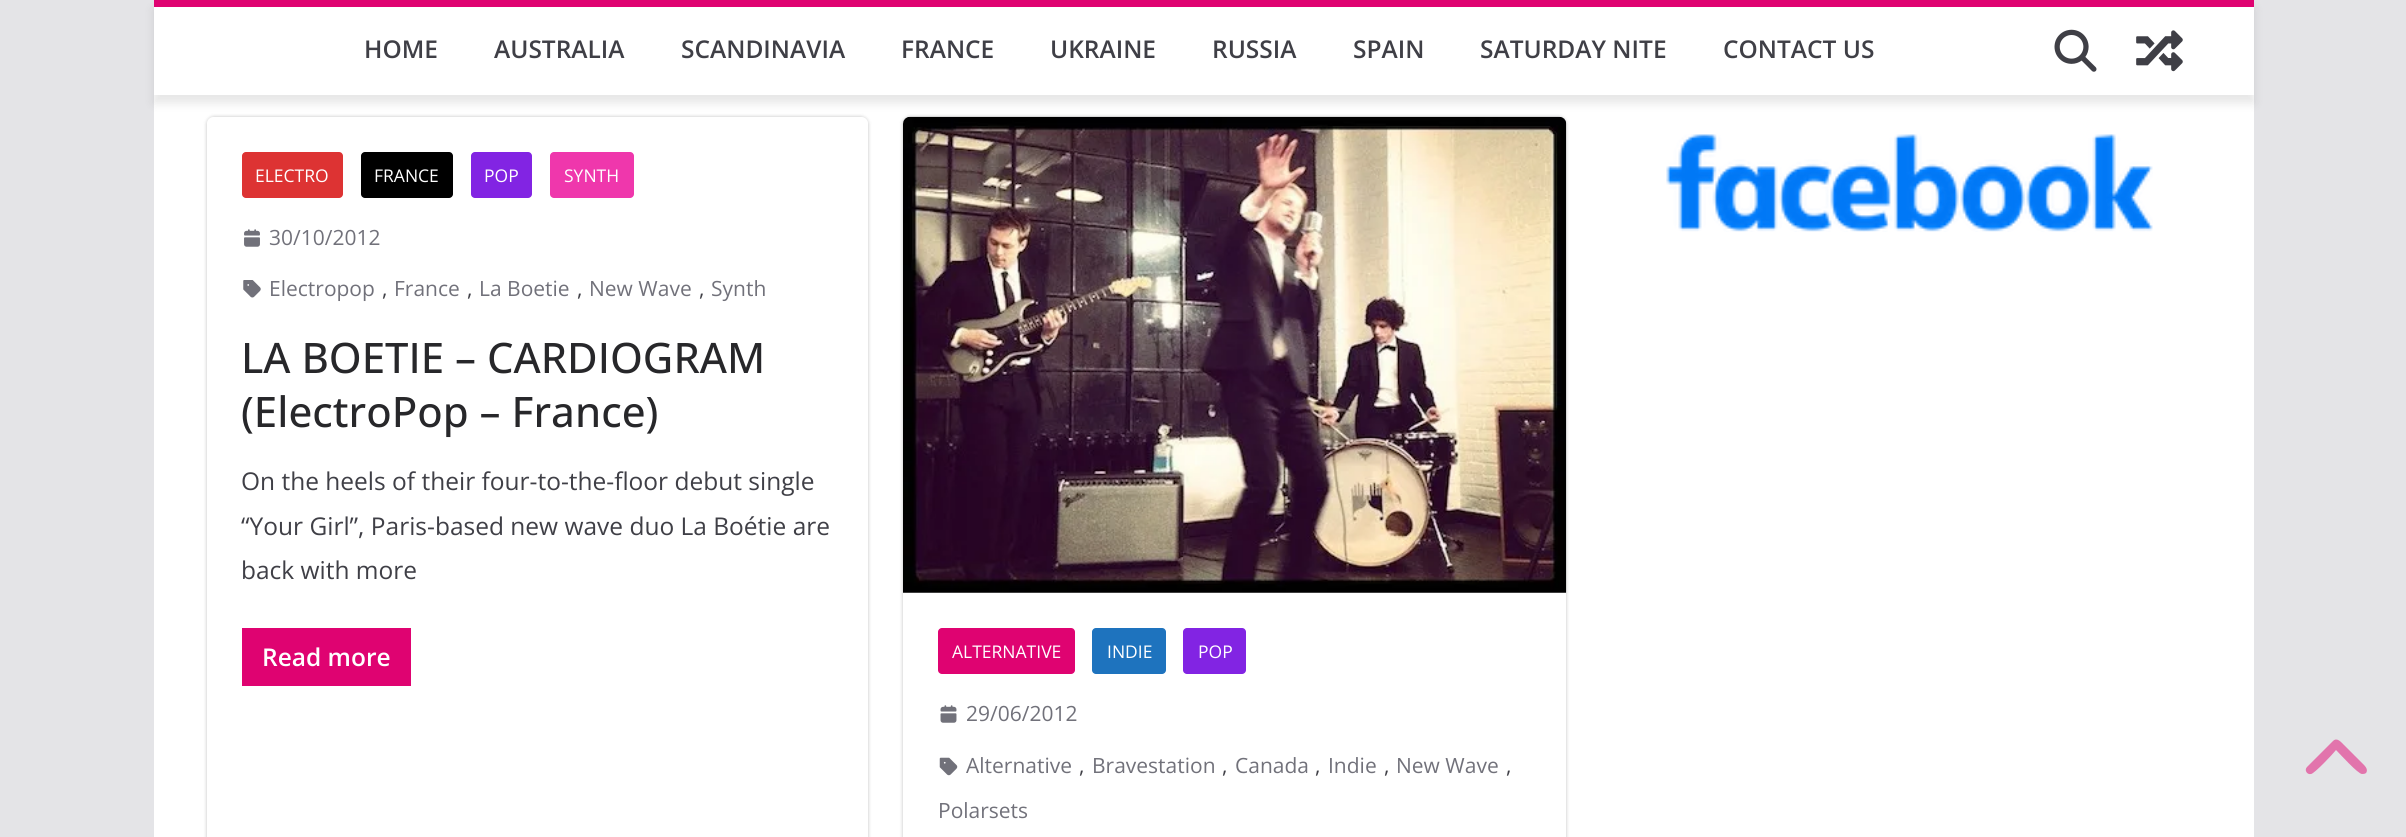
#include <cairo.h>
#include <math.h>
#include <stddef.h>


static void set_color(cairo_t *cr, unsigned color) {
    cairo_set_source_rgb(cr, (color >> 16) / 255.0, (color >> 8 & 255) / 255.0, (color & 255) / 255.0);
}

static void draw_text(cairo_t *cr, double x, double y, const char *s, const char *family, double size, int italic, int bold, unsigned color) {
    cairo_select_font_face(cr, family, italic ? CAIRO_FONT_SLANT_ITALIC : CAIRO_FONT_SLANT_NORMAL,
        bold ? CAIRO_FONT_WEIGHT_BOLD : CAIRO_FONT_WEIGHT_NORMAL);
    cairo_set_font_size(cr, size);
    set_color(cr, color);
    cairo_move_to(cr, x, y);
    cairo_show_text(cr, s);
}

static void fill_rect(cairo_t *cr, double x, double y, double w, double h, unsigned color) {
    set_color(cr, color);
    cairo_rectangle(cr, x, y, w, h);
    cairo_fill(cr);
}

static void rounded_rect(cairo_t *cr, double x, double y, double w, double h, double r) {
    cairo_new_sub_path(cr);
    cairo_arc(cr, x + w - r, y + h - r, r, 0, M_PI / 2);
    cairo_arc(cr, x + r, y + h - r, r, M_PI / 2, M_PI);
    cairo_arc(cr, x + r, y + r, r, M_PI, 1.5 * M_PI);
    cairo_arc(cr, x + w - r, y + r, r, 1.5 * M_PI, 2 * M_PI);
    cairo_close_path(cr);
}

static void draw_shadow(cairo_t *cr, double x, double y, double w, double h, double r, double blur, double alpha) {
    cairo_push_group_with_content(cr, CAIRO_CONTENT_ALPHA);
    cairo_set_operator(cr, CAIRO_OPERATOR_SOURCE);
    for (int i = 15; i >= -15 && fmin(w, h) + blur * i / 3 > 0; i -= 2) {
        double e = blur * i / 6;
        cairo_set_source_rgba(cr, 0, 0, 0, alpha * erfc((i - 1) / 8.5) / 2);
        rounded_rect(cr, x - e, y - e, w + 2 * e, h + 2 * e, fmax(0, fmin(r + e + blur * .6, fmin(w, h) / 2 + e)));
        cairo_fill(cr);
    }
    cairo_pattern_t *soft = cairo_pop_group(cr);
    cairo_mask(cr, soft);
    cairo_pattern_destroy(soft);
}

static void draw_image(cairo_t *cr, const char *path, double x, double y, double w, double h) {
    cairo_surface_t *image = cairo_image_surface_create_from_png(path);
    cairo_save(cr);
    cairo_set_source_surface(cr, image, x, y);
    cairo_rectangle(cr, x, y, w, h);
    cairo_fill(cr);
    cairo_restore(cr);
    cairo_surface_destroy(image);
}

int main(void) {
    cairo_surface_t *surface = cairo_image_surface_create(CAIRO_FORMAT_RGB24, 2406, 837);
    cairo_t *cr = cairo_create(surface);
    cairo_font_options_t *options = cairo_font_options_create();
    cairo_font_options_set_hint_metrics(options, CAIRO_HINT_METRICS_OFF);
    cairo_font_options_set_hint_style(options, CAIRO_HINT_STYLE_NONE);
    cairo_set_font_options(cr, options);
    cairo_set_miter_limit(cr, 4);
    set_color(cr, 0xE4E4E7);
    cairo_paint(cr);
    fill_rect(cr, 154, 95, 2100, 742, 0xFFFFFF);
    cairo_save(cr);
    cairo_set_fill_rule(cr, CAIRO_FILL_RULE_EVEN_ODD);
    cairo_new_path(cr);
    cairo_move_to(cr, 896, 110);
    cairo_line_to(cr, 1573, 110);
    cairo_line_to(cr, 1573, 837);
    cairo_line_to(cr, 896, 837);
    cairo_close_path(cr);
    cairo_move_to(cr, 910, 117);
    cairo_line_to(cr, 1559, 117);
    cairo_curve_to(cr, 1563, 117, 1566, 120, 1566, 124);
    cairo_line_to(cr, 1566, 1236);
    cairo_curve_to(cr, 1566, 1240, 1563, 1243, 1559, 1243);
    cairo_line_to(cr, 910, 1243);
    cairo_curve_to(cr, 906, 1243, 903, 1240, 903, 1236);
    cairo_line_to(cr, 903, 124);
    cairo_curve_to(cr, 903, 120, 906, 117, 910, 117);
    cairo_close_path(cr);
    cairo_clip(cr);
    set_color(cr, 0x000000);
    draw_shadow(cr, 903, 117, 663, 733, 7, 2, 0.24);
    cairo_restore(cr);
    draw_image(cr, "assets/img5.png", 903, 116, 664, 477);
    set_color(cr, 0x000000);
    draw_shadow(cr, 154, 9, 2100, 94, 0, 5, 0.1);
    fill_rect(cr, 154, 7, 2100, 88, 0xFFFFFF);
    fill_rect(cr, 154, 0, 2100, 7, 0xDF0371);
    draw_text(cr, 364, 58, "HOME", "Open Sans SemiBold", 24.5, 0, 0, 0x3F3F46);
    draw_text(cr, 494, 58, "AUSTRALIA", "Open Sans SemiBold", 24.5, 0, 0, 0x3F3F46);
    draw_text(cr, 681, 58, "SCANDINAVIA", "Open Sans SemiBold", 24.5, 0, 0, 0x3F3F46);
    draw_text(cr, 901, 58, "FRANCE", "Open Sans SemiBold", 24.5, 0, 0, 0x3F3F46);
    draw_text(cr, 1050, 58, "UKRAINE", "Open Sans SemiBold", 24.5, 0, 0, 0x3F3F46);
    draw_text(cr, 1212, 58, "RUSSIA", "Open Sans SemiBold", 24.5, 0, 0, 0x3F3F46);
    draw_text(cr, 1353, 58, "SPAIN", "Open Sans SemiBold", 24.5, 0, 0, 0x3F3F46);
    draw_text(cr, 1480, 58, "SATURDAY NITE", "Open Sans SemiBold", 24.5, 0, 0, 0x3F3F46);
    draw_text(cr, 1723, 58, "CONTACT US", "Open Sans SemiBold", 24.5, 0, 0, 0x3F3F46);
    draw_image(cr, "assets/img1.png", 2054, 29, 43, 43);
    draw_image(cr, "assets/img2.png", 2136, 30, 47, 42);
    cairo_save(cr);
    cairo_set_fill_rule(cr, CAIRO_FILL_RULE_EVEN_ODD);
    cairo_new_path(cr);
    cairo_move_to(cr, 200, 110);
    cairo_line_to(cr, 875, 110);
    cairo_line_to(cr, 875, 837);
    cairo_line_to(cr, 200, 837);
    cairo_close_path(cr);
    cairo_move_to(cr, 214, 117);
    cairo_line_to(cr, 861, 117);
    cairo_curve_to(cr, 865, 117, 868, 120, 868, 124);
    cairo_line_to(cr, 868, 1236);
    cairo_curve_to(cr, 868, 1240, 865, 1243, 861, 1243);
    cairo_line_to(cr, 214, 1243);
    cairo_curve_to(cr, 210, 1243, 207, 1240, 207, 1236);
    cairo_line_to(cr, 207, 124);
    cairo_curve_to(cr, 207, 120, 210, 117, 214, 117);
    cairo_close_path(cr);
    cairo_clip(cr);
    set_color(cr, 0x000000);
    draw_shadow(cr, 207, 117, 661, 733, 7, 2, 0.24);
    cairo_restore(cr);
    set_color(cr, 0xDD3333);
    rounded_rect(cr, 242, 152, 101, 46, 4);
    cairo_fill(cr);
    draw_text(cr, 255, 182, "ELECTRO", "Open Sans", 17.5, 0, 0, 0xFFFFFF);
    set_color(cr, 0x000000);
    rounded_rect(cr, 361, 152, 92, 46, 4);
    cairo_fill(cr);
    draw_text(cr, 374, 182, "FRANCE", "Open Sans", 17.5, 0, 0, 0xFFFFFF);
    set_color(cr, 0x8224E3);
    rounded_rect(cr, 471, 152, 61, 46, 4);
    cairo_fill(cr);
    draw_text(cr, 484, 182, "POP", "Open Sans", 17.5, 0, 0, 0xFFFFFF);
    set_color(cr, 0xEF37AC);
    rounded_rect(cr, 550, 152, 84, 46, 4);
    cairo_fill(cr);
    draw_text(cr, 564, 182, "SYNTH", "Open Sans", 17.5, 0, 0, 0xFFFFFF);
    draw_image(cr, "assets/img3.png", 244, 229, 16, 18);
    draw_text(cr, 269, 245, "30/10/2012", "Open Sans", 21, 0, 0, 0x71717A);
    draw_image(cr, "assets/img4.png", 243, 280, 18, 18);
    draw_text(cr, 269, 296, "Electropop", "Open Sans", 21, 0, 0, 0x71717A);
    draw_text(cr, 382, 296, ",", "Open Sans", 21, 0, 0, 0x3F3F46);
    draw_text(cr, 394, 296, "France", "Open Sans", 21, 0, 0, 0x71717A);
    draw_text(cr, 467, 296, ",", "Open Sans", 21, 0, 0, 0x3F3F46);
    draw_text(cr, 479, 296, "La Boetie", "Open Sans", 21, 0, 0, 0x71717A);
    draw_text(cr, 577, 296, ",", "Open Sans", 21, 0, 0, 0x3F3F46);
    draw_text(cr, 589, 296, "New Wave", "Open Sans", 21, 0, 0, 0x71717A);
    draw_text(cr, 699, 296, ",", "Open Sans", 21, 0, 0, 0x3F3F46);
    draw_text(cr, 711, 296, "Synth", "Open Sans", 21, 0, 0, 0x71717A);
    draw_text(cr, 241, 373, "LA BOETIE – CARDIOGRAM", "Open Sans Medium", 42, 0, 0, 0x27272A);
    draw_text(cr, 241, 427, "(ElectroPop – France)", "Open Sans Medium", 42, 0, 0, 0x27272A);
    draw_text(cr, 241, 490, "On the heels of their four-to-the-floor debut single", "Open Sans", 24.5, 0, 0, 0x3F3F46);
    draw_text(cr, 241, 535, "“Your Girl”, Paris-based new wave duo La Boétie are", "Open Sans", 24.5, 0, 0, 0x3F3F46);
    draw_text(cr, 241, 579, "back with more", "Open Sans", 24.5, 0, 0, 0x3F3F46);
    fill_rect(cr, 242, 628, 169, 58, 0xDF0371);
    draw_text(cr, 262, 666, "Read more", "Open Sans SemiBold", 24.5, 0, 0, 0xFFFFFF);
    set_color(cr, 0xDF0371);
    rounded_rect(cr, 938, 628, 137, 46, 4);
    cairo_fill(cr);
    draw_text(cr, 952, 658, "ALTERNATIVE", "Open Sans", 17.5, 0, 0, 0xFFFFFF);
    set_color(cr, 0x1E73BE);
    rounded_rect(cr, 1092, 628, 74, 46, 4);
    cairo_fill(cr);
    draw_text(cr, 1107, 658, "INDIE", "Open Sans", 17.5, 0, 0, 0xFFFFFF);
    set_color(cr, 0x8224E3);
    rounded_rect(cr, 1183, 628, 63, 46, 4);
    cairo_fill(cr);
    draw_text(cr, 1198, 658, "POP", "Open Sans", 17.5, 0, 0, 0xFFFFFF);
    draw_image(cr, "assets/img6.png", 940, 705, 17, 18);
    draw_text(cr, 966, 721, "29/06/2012", "Open Sans", 21, 0, 0, 0x71717A);
    draw_image(cr, "assets/img7.png", 939, 757, 19, 19);
    draw_text(cr, 966, 773, "Alternative", "Open Sans", 21, 0, 0, 0x71717A);
    draw_text(cr, 1079, 773, ",", "Open Sans", 21, 0, 0, 0x3F3F46);
    draw_text(cr, 1092, 773, "Bravestation", "Open Sans", 21, 0, 0, 0x71717A);
    draw_text(cr, 1222, 773, ",", "Open Sans", 21, 0, 0, 0x3F3F46);
    draw_text(cr, 1235, 773, "Canada", "Open Sans", 21, 0, 0, 0x71717A);
    draw_text(cr, 1315, 773, ",", "Open Sans", 21, 0, 0, 0x3F3F46);
    draw_text(cr, 1328, 773, "Indie", "Open Sans", 21, 0, 0, 0x71717A);
    draw_text(cr, 1384, 773, ",", "Open Sans", 21, 0, 0, 0x3F3F46);
    draw_text(cr, 1396, 773, "New Wave", "Open Sans", 21, 0, 0, 0x71717A);
    draw_text(cr, 1506, 773, ",", "Open Sans", 21, 0, 0, 0x3F3F46);
    draw_text(cr, 938, 818, "Polarsets", "Open Sans", 21, 0, 0, 0x71717A);
    draw_image(cr, "assets/img8.png", 1666, 134, 487, 98);
    set_color(cr, 0xE274AC);
    cairo_new_path(cr);
    cairo_move_to(cr, 2333, 741);
    cairo_curve_to(cr, 2337, 737, 2341, 742, 2344, 745);
    cairo_line_to(cr, 2361, 762);
    cairo_curve_to(cr, 2364, 765, 2369, 769, 2366, 773);
    cairo_curve_to(cr, 2365, 774, 2363, 774, 2362, 774);
    cairo_curve_to(cr, 2358, 774, 2340, 754, 2336, 750);
    cairo_curve_to(cr, 2333, 754, 2314, 774, 2311, 774);
    cairo_curve_to(cr, 2307, 775, 2304, 770, 2307, 767);
    cairo_close_path(cr);
    cairo_fill(cr);
    cairo_surface_write_to_png(surface, "output.png");
    cairo_font_options_destroy(options);
    cairo_destroy(cr);
    cairo_surface_destroy(surface);
    return 0;
}
